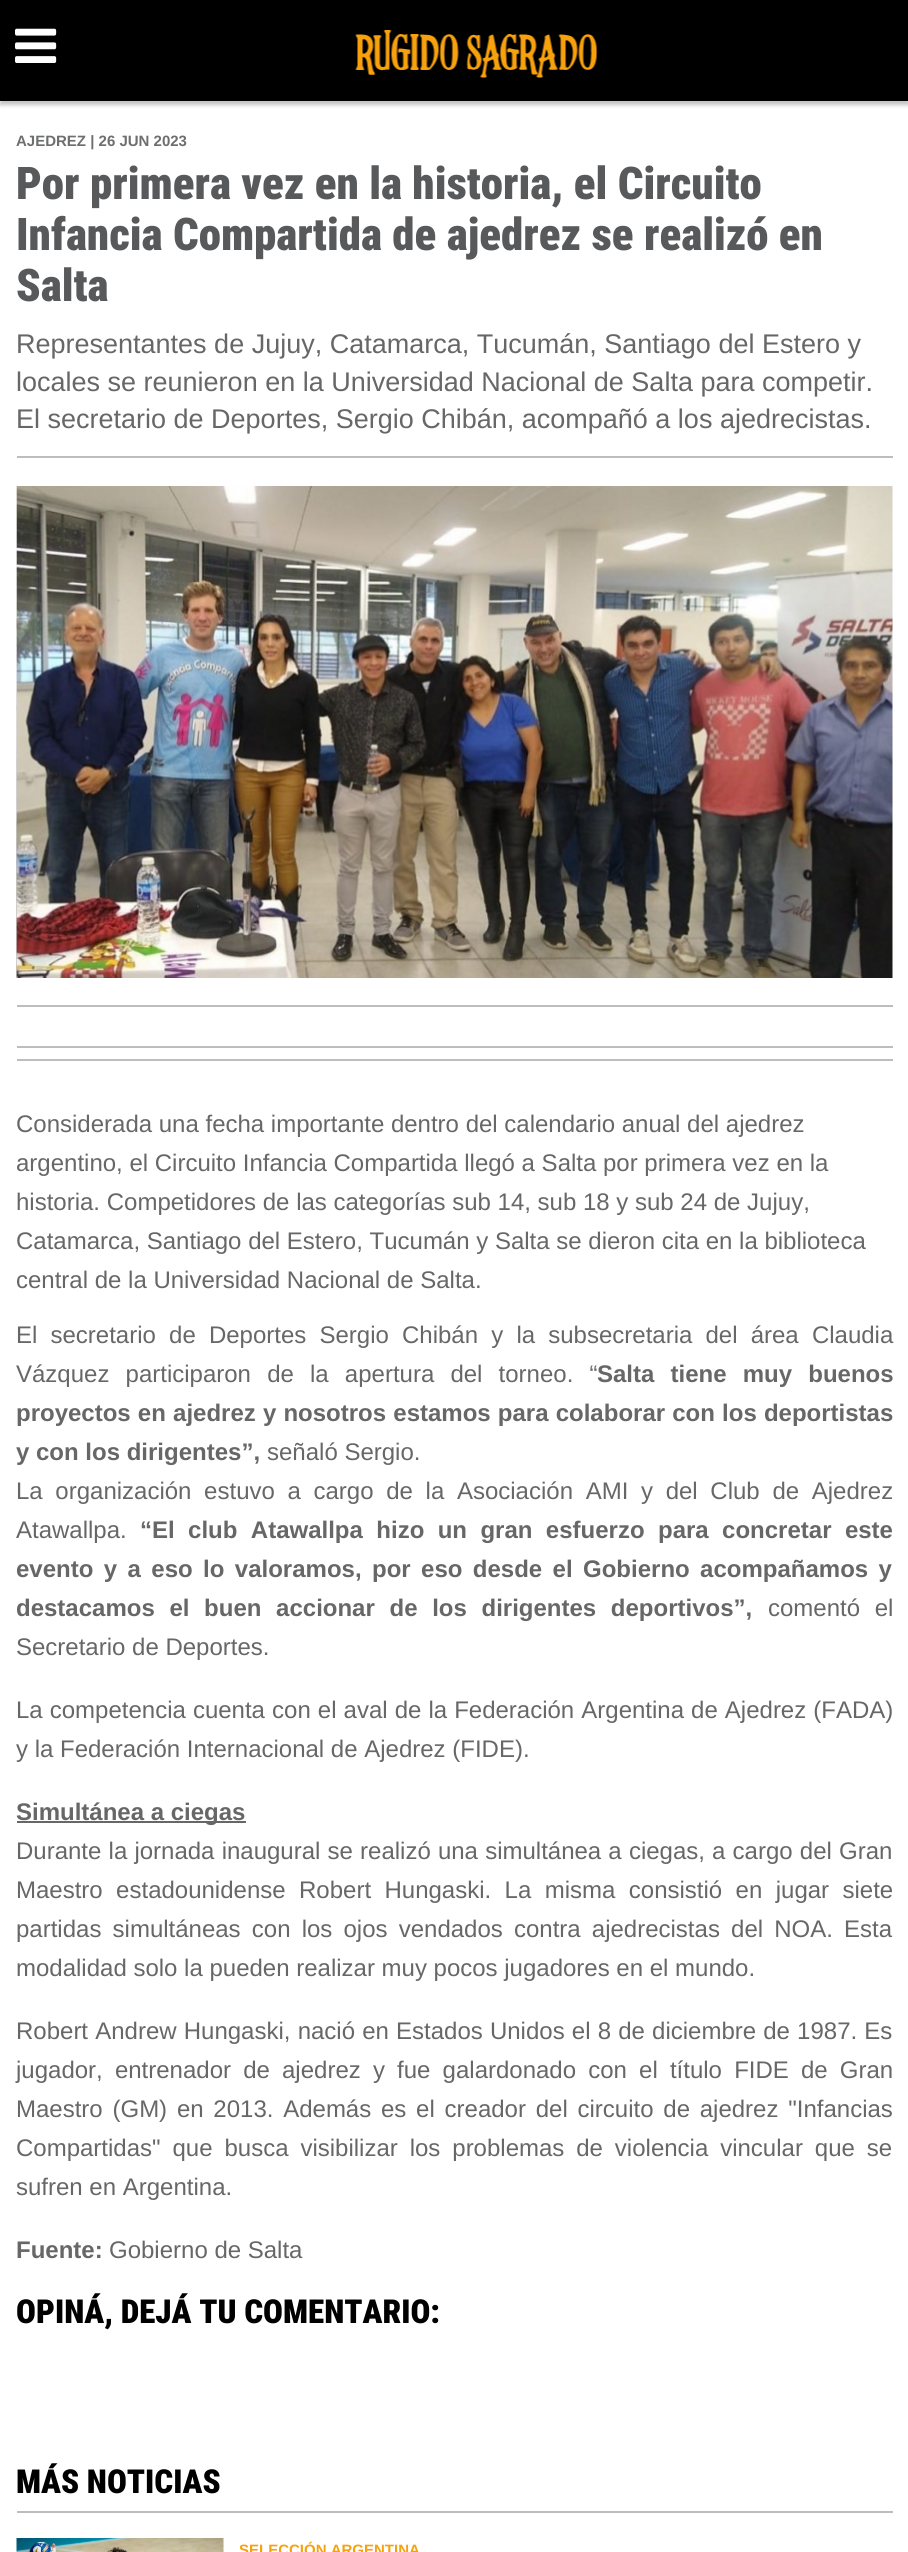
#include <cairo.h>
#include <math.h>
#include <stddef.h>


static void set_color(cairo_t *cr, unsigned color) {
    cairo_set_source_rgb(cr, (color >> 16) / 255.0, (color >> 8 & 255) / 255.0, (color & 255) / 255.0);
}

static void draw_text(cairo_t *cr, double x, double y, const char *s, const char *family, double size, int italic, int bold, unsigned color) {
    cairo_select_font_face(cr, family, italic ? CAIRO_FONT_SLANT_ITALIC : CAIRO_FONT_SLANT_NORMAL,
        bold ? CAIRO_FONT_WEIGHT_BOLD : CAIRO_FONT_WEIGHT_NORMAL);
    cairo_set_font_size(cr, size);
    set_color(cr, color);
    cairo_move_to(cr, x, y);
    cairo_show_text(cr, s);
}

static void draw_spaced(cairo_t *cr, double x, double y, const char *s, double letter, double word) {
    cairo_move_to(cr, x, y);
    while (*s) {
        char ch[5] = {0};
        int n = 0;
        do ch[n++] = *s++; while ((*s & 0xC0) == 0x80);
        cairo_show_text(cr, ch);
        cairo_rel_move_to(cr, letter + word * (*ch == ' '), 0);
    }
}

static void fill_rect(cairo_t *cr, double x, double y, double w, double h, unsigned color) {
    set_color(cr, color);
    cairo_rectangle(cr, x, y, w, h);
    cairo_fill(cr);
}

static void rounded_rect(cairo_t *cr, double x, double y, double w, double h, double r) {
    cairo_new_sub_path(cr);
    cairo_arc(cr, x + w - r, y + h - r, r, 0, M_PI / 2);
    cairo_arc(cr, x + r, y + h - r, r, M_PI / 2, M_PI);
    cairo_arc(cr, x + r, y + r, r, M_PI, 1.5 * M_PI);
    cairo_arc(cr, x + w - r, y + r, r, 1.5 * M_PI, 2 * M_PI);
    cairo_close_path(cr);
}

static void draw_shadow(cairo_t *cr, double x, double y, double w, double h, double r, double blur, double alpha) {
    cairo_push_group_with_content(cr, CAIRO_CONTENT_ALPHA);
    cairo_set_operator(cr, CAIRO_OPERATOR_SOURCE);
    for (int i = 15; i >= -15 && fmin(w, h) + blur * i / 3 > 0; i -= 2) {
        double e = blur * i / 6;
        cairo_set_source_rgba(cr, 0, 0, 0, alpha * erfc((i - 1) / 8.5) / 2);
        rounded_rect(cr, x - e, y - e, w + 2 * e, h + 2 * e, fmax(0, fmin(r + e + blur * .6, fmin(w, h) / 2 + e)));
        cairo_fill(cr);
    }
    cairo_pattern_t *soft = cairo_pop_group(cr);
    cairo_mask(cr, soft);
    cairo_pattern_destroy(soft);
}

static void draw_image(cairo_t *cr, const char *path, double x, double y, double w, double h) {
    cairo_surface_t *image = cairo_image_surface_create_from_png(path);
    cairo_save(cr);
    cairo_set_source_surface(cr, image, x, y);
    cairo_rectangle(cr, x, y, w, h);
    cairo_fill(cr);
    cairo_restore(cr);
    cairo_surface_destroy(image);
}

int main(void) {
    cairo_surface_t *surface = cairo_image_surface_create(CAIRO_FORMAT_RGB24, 908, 2552);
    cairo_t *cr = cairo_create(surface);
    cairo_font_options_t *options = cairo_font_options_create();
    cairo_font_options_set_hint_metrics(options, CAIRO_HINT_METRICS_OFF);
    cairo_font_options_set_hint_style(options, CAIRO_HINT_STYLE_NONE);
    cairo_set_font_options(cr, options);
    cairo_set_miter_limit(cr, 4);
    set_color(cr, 0xFFFFFF);
    cairo_paint(cr);
    set_color(cr, 0x323232);
    draw_shadow(cr, 0, 5, 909, 100, 0, 2, 0.3);
    fill_rect(cr, 0, 0, 908, 101, 0x000000);
    draw_image(cr, "assets/img1.png", 15, 28, 42, 35);
    draw_image(cr, "assets/img2.png", 355, 30, 243, 48);
    draw_text(cr, 16, 146, "AJEDREZ | 26 JUN 2023", "Liberation Sans", 15, 0, 1, 0x6D6E70);
    draw_text(cr, 16, 199, "Por primera vez en la historia, el Circuito", "Roboto Condensed Black", 45, 0, 0, 0x58595B);
    draw_text(cr, 16, 250, "Infancia Compartida de ajedrez se realizó en", "Roboto Condensed Black", 45, 0, 0, 0x58595B);
    draw_text(cr, 16, 301, "Salta", "Roboto Condensed Black", 45, 0, 0, 0x58595B);
    draw_text(cr, 16, 353, "Representantes de Jujuy, Catamarca, Tucumán, Santiago del Estero y", "Liberation Sans", 27, 0, 0, 0x676767);
    draw_text(cr, 16, 391, "locales se reunieron en la Universidad Nacional de Salta para competir.", "Liberation Sans", 27, 0, 0, 0x676767);
    draw_text(cr, 16, 428, "El secretario de Deportes, Sergio Chibán, acompañó a los ajedrecistas.", "Liberation Sans", 27, 0, 0, 0x676767);
    fill_rect(cr, 17, 456, 876, 2, 0xBBBDBF);
    draw_image(cr, "assets/img3.png", 16, 486, 1, 492);
    draw_image(cr, "assets/img4.png", 16, 486, 877, 492);
    fill_rect(cr, 17, 1059, 876, 2, 0xBBBDBF);
    fill_rect(cr, 17, 1005, 876, 2, 0xBBBDBF);
    fill_rect(cr, 17, 1046, 876, 2, 0xBBBDBF);
    draw_text(cr, 16, 1132, "Considerada una fecha importante dentro del calendario anual del ajedrez", "Liberation Sans", 24, 0, 0, 0x676767);
    draw_text(cr, 16, 1171, "argentino, el Circuito Infancia Compartida llegó a Salta por primera vez en la", "Liberation Sans", 24, 0, 0, 0x676767);
    draw_text(cr, 16, 1210, "historia. Competidores de las categorías sub 14, sub 18 y sub 24 de Jujuy,", "Liberation Sans", 24, 0, 0, 0x676767);
    draw_text(cr, 16, 1249, "Catamarca, Santiago del Estero, Tucumán y Salta se dieron cita en la biblioteca", "Liberation Sans", 24, 0, 0, 0x676767);
    draw_text(cr, 16, 1288, "central de la Universidad Nacional de Salta.", "Liberation Sans", 24, 0, 0, 0x676767);
    draw_spaced(cr, 16, 1343, "El secretario de Deportes Sergio Chibán y la subsecretaria del área Claudia", 0, 6.5);
    draw_spaced(cr, 16, 1382, "Vázquez participaron de la apertura del torneo. “", 0, 9.5);
    cairo_select_font_face(cr, "Liberation Sans", CAIRO_FONT_SLANT_NORMAL, CAIRO_FONT_WEIGHT_BOLD);
    draw_spaced(cr, 597, 1382, "Salta tiene muy buenos", 0, 9.5);
    draw_spaced(cr, 16, 1421, "proyectos en ajedrez y nosotros estamos para colaborar con los deportistas", 0, 0.5);
    draw_text(cr, 16, 1460, "y con los dirigentes”,", "Liberation Sans", 24, 0, 1, 0x676767);
    draw_text(cr, 267, 1460, "señaló Sergio.", "Liberation Sans", 24, 0, 0, 0x676767);
    draw_spaced(cr, 16, 1499, "La organización estuvo a cargo de la Asociación AMI y del Club de Ajedrez", 0, 6);
    draw_text(cr, 16, 1538, "Atawallpa.", "Liberation Sans", 24, 0, 0, 0x676767);
    cairo_select_font_face(cr, "Liberation Sans", CAIRO_FONT_SLANT_NORMAL, CAIRO_FONT_WEIGHT_BOLD);
    draw_spaced(cr, 140, 1538, "“El club Atawallpa hizo un gran esfuerzo para concretar este", 0, 6.75);
    draw_spaced(cr, 16, 1577, "evento y a eso lo valoramos, por eso desde el Gobierno acompañamos y", 0, 3.75);
    draw_spaced(cr, 16, 1616, "destacamos el buen accionar de los dirigentes deportivos”,", 0, 8);
    cairo_select_font_face(cr, "Liberation Sans", CAIRO_FONT_SLANT_NORMAL, CAIRO_FONT_WEIGHT_NORMAL);
    draw_spaced(cr, 768, 1616, "comentó el", 0, 8);
    draw_text(cr, 16, 1655, "Secretario de Deportes.", "Liberation Sans", 24, 0, 0, 0x676767);
    draw_spaced(cr, 16, 1718, "La competencia cuenta con el aval de la Federación Argentina de Ajedrez (FADA)", 0, 0.4);
    draw_text(cr, 16, 1757, "y la Federación Internacional de Ajedrez (FIDE).", "Liberation Sans", 24, 0, 0, 0x676767);
    fill_rect(cr, 17, 1821, 229, 2, 0x676767);
    draw_text(cr, 16, 1820, "Simultánea a ciegas", "Liberation Sans", 24, 0, 1, 0x676767);
    cairo_select_font_face(cr, "Liberation Sans", CAIRO_FONT_SLANT_NORMAL, CAIRO_FONT_WEIGHT_NORMAL);
    draw_spaced(cr, 16, 1859, "Durante la jornada inaugural se realizó una simultánea a ciegas, a cargo del Gran", 0, 0.5);
    draw_spaced(cr, 16, 1898, "Maestro estadounidense Robert Hungaski. La misma consistió en jugar siete", 0, 6.75);
    draw_spaced(cr, 16, 1937, "partidas simultáneas con los ojos vendados contra ajedrecistas del NOA. Esta", 0, 4.5);
    draw_text(cr, 16, 1976, "modalidad solo la pueden realizar muy pocos jugadores en el mundo.", "Liberation Sans", 24, 0, 0, 0x676767);
    draw_spaced(cr, 16, 2039, "Robert Andrew Hungaski, nació en Estados Unidos el 8 de diciembre de 1987. Es", 0, 0.5);
    draw_spaced(cr, 16, 2078, "jugador, entrenador de ajedrez y fue galardonado con el título FIDE de Gran", 0, 5.5);
    draw_spaced(cr, 16, 2117, "Maestro (GM) en 2013. Además es el creador del circuito de ajedrez \"Infancias", 0, 3.1);
    draw_spaced(cr, 16, 2156, "Compartidas\" que busca visibilizar los problemas de violencia vincular que se", 0, 5.25);
    draw_text(cr, 16, 2195, "sufren en Argentina.", "Liberation Sans", 24, 0, 0, 0x676767);
    draw_text(cr, 16, 2258, "Fuente:", "Liberation Sans", 24, 0, 1, 0x676767);
    draw_text(cr, 109, 2258, "Gobierno de Salta", "Liberation Sans", 24, 0, 0, 0x676767);
    draw_text(cr, 16, 2323, "OPINÁ, DEJÁ TU COMENTARIO:", "Roboto Condensed Black", 33, 0, 0, 0x000000);
    draw_text(cr, 16, 2493, "MÁS NOTICIAS", "Roboto Condensed Black", 33, 0, 0, 0x000000);
    fill_rect(cr, 17, 2511, 876, 2, 0xBBBDBF);
    draw_image(cr, "assets/img5.png", 16, 2538, 208, 14);
    draw_text(cr, 239, 2555, "SELECCIÓN ARGENTINA", "Liberation Sans", 15, 0, 1, 0xF7A10C);
    cairo_surface_write_to_png(surface, "output.png");
    cairo_font_options_destroy(options);
    cairo_destroy(cr);
    cairo_surface_destroy(surface);
    return 0;
}
